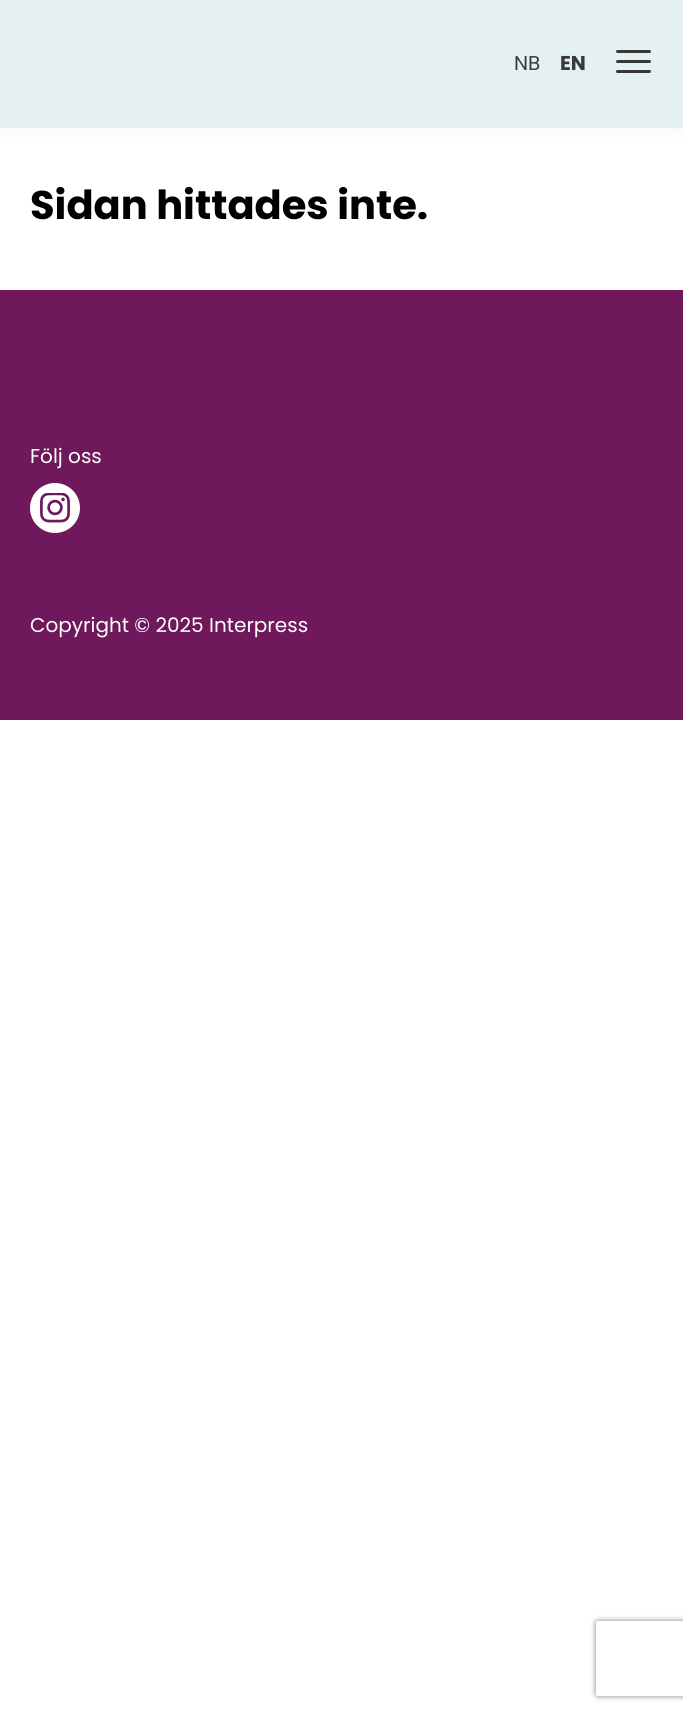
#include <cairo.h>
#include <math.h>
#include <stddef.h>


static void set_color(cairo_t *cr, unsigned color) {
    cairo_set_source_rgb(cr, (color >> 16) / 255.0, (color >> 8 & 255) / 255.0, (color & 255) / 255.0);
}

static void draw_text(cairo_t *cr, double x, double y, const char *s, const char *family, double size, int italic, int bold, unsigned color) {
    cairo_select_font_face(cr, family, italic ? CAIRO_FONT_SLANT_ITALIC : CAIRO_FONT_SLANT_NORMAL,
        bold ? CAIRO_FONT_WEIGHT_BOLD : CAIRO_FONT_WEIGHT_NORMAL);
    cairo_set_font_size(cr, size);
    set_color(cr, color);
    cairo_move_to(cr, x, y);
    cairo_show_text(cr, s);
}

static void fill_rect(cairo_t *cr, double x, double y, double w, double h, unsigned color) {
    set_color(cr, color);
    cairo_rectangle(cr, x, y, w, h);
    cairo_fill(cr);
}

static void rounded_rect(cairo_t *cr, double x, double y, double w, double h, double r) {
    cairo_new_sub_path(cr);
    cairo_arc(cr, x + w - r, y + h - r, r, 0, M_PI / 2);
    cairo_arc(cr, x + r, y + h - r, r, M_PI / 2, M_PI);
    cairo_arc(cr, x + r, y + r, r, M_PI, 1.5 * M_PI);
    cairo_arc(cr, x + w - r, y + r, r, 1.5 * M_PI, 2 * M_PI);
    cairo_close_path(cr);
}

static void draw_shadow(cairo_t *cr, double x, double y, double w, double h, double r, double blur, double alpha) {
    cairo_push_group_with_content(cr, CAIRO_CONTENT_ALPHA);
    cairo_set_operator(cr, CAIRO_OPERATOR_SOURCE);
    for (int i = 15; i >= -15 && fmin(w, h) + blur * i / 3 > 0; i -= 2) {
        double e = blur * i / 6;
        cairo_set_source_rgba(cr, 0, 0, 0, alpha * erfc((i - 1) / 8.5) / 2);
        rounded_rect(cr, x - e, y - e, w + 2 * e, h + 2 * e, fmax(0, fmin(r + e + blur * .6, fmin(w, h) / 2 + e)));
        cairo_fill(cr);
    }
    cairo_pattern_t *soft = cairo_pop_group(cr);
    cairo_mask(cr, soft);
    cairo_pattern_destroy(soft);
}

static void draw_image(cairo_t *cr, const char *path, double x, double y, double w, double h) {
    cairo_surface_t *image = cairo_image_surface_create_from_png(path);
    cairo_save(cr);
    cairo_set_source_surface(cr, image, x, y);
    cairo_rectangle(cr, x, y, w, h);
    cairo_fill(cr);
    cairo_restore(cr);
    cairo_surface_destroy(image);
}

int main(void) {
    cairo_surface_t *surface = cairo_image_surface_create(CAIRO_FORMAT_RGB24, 683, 1713);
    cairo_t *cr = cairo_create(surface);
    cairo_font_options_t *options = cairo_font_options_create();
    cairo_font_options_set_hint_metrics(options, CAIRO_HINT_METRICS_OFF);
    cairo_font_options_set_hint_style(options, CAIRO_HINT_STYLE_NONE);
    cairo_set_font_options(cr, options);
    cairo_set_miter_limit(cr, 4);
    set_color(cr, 0xFFFFFF);
    cairo_paint(cr);
    set_color(cr, 0x333F47);
    draw_shadow(cr, 0, 0, 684, 128, 0, 10, 0.05);
    fill_rect(cr, 0, 0, 683, 128, 0xE5F0F0);
    draw_text(cr, 514, 70, "NB", "Poppins", 20, 0, 0, 0x383838);
    draw_text(cr, 560, 70, "EN", "Poppins", 20, 0, 1, 0x383838);
    rounded_rect(cr, 616, 60, 35, 3, 1.5);
    cairo_fill(cr);
    rounded_rect(cr, 616, 50, 35, 3, 1.5);
    cairo_fill(cr);
    rounded_rect(cr, 616, 70, 35, 3, 1.5);
    cairo_fill(cr);
    draw_text(cr, 30, 219, "Sidan hittades inte.", "Poppins", 40, 0, 1, 0x000000);
    fill_rect(cr, 0, 290, 683, 430, 0x70185C);
    draw_text(cr, 30, 463, "Följ oss", "Poppins", 20, 0, 0, 0xFFFFFF);
    cairo_new_path(cr);
    cairo_arc(cr, 55, 508, 25, 0, 2 * M_PI);
    cairo_fill(cr);
    draw_image(cr, "assets/img1.png", 40, 493, 30, 30);
    draw_text(cr, 30, 632, "Copyright © 2025 Interpress", "Poppins", 20, 0, 0, 0xFFFFFF);
    cairo_save(cr);
    cairo_set_fill_rule(cr, CAIRO_FILL_RULE_EVEN_ODD);
    cairo_new_path(cr);
    cairo_move_to(cr, 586, 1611);
    cairo_line_to(cr, 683, 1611);
    cairo_line_to(cr, 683, 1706);
    cairo_line_to(cr, 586, 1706);
    cairo_close_path(cr);
    cairo_move_to(cr, 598.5, 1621);
    cairo_line_to(cr, 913.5, 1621);
    cairo_curve_to(cr, 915, 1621, 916, 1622, 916, 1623.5);
    cairo_line_to(cr, 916, 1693.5);
    cairo_curve_to(cr, 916, 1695, 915, 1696, 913.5, 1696);
    cairo_line_to(cr, 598.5, 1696);
    cairo_curve_to(cr, 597, 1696, 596, 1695, 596, 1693.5);
    cairo_line_to(cr, 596, 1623.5);
    cairo_curve_to(cr, 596, 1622, 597, 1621, 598.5, 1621);
    cairo_close_path(cr);
    cairo_clip(cr);
    set_color(cr, 0x808080);
    draw_shadow(cr, 596, 1621, 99, 75, 2.5, 3, 1);
    cairo_restore(cr);
    cairo_surface_write_to_png(surface, "output.png");
    cairo_font_options_destroy(options);
    cairo_destroy(cr);
    cairo_surface_destroy(surface);
    return 0;
}
